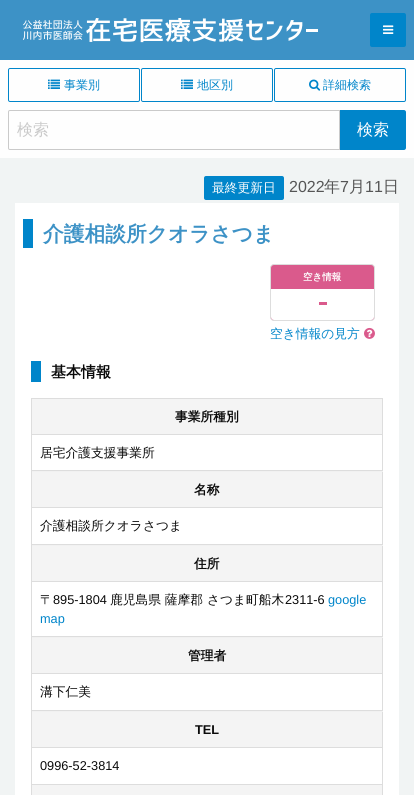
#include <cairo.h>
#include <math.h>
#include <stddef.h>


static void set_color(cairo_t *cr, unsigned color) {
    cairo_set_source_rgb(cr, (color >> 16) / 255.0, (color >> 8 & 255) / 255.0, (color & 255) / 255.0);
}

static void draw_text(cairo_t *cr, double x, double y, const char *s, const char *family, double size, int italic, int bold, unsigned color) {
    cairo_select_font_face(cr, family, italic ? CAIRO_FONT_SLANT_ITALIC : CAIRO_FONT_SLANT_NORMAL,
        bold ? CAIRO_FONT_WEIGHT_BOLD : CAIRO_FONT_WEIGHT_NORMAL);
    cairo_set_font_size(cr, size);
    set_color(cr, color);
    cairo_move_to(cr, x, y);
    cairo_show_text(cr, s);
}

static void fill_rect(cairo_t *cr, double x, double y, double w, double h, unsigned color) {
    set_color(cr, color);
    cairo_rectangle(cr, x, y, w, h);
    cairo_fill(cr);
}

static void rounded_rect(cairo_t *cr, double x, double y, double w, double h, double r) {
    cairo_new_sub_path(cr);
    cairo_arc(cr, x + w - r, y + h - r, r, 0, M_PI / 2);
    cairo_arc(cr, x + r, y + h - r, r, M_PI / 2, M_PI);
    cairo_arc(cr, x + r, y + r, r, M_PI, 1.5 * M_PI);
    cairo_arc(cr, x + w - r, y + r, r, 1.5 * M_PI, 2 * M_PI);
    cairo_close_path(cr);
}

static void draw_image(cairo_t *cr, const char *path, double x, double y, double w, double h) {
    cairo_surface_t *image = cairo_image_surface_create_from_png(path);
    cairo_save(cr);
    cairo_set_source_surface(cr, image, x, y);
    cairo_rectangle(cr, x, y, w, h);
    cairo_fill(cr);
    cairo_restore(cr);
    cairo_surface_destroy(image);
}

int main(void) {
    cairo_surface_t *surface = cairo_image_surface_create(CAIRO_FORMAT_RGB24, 414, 795);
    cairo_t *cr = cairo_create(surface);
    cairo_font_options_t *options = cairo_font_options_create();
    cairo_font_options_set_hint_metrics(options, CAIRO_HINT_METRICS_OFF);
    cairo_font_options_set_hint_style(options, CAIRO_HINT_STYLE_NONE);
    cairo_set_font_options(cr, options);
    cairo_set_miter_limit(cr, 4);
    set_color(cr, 0xF1F4F4);
    cairo_paint(cr);
    fill_rect(cr, 0, 0, 414, 60, 0x3D92C6);
    draw_image(cr, "assets/img1.png", 23, 18, 295, 25);
    set_color(cr, 0x0085CA);
    rounded_rect(cr, 370, 13, 36, 34, 2);
    cairo_fill(cr);
    draw_image(cr, "assets/img2.png", 383, 25, 11, 9);
    fill_rect(cr, 0, 60, 414, 98, 0xFEFEFE);
    rounded_rect(cr, 8.5, 68.5, 131, 33, 1.5);
    set_color(cr, 0x0085CA);
    cairo_set_line_width(cr, 1);
    cairo_stroke(cr);
    draw_image(cr, "assets/img3.png", 48, 79, 12, 10);
    draw_text(cr, 64, 89, "事業別", "WenQuanYi Zen Hei Medium", 12, 0, 0, 0x0085CA);
    rounded_rect(cr, 141.5, 68.5, 131, 33, 1.5);
    cairo_stroke(cr);
    draw_image(cr, "assets/img3.png", 181, 79, 12, 10);
    draw_text(cr, 197, 89, "地区別", "WenQuanYi Zen Hei Medium", 12, 0, 0, 0x0085CA);
    rounded_rect(cr, 274.5, 68.5, 131, 33, 1.5);
    cairo_stroke(cr);
    draw_image(cr, "assets/img4.png", 309, 79, 12, 12);
    draw_text(cr, 323, 89, "詳細検索", "WenQuanYi Zen Hei Medium", 12, 0, 0, 0x0085CA);
    cairo_new_path(cr);
    cairo_move_to(cr, 10, 110.5);
    cairo_line_to(cr, 339.5, 110.5);
    cairo_line_to(cr, 339.5, 149.5);
    cairo_line_to(cr, 10, 149.5);
    cairo_curve_to(cr, 9, 149.5, 8.5, 149, 8.5, 148);
    cairo_line_to(cr, 8.5, 112);
    cairo_curve_to(cr, 8.5, 111, 9, 110.5, 10, 110.5);
    cairo_close_path(cr);
    set_color(cr, 0xCACACA);
    cairo_stroke(cr);
    draw_text(cr, 17, 135, "検索", "WenQuanYi Zen Hei Medium", 16, 0, 0, 0xCACACA);
    set_color(cr, 0x0085CA);
    cairo_new_path(cr);
    cairo_move_to(cr, 340, 110);
    cairo_line_to(cr, 404, 110);
    cairo_curve_to(cr, 405, 110, 406, 111, 406, 112);
    cairo_line_to(cr, 406, 148);
    cairo_curve_to(cr, 406, 149, 405, 150, 404, 150);
    cairo_line_to(cr, 340, 150);
    cairo_close_path(cr);
    cairo_fill(cr);
    draw_text(cr, 357, 135, "検索", "WenQuanYi Zen Hei Medium", 16, 0, 0, 0xFEFEFE);
    set_color(cr, 0x0085CA);
    rounded_rect(cr, 204, 176, 80, 24, 2);
    cairo_fill(cr);
    draw_text(cr, 212, 192, "最終更新日", "WenQuanYi Zen Hei Medium", 12.75, 0, 0, 0xFEFEFE);
    draw_text(cr, 289, 192, "2022", "Liberation Sans", 16, 0, 0, 0x555555);
    draw_text(cr, 324, 192, "年", "WenQuanYi Zen Hei Medium", 16, 0, 0, 0x555555);
    draw_text(cr, 340, 192, "7", "Liberation Sans", 16, 0, 0, 0x555555);
    draw_text(cr, 349, 192, "月", "WenQuanYi Zen Hei Medium", 16, 0, 0, 0x555555);
    draw_text(cr, 365, 192, "11", "Liberation Sans", 16, 0, 0, 0x555555);
    draw_text(cr, 383, 192, "日", "WenQuanYi Zen Hei Medium", 16, 0, 0, 0x555555);
    fill_rect(cr, 15, 203, 384, 592, 0xFFFFFF);
    fill_rect(cr, 23, 219, 10, 29, 0x0085CA);
    draw_text(cr, 43, 241, "介護相談所クオラさつま", "WenQuanYi Zen Hei", 20.75, 0, 1, 0x3D92C6);
    set_color(cr, 0xDA5A8C);
    rounded_rect(cr, 270.5, 264.5, 104, 56, 3.5);
    cairo_fill_preserve(cr);
    set_color(cr, 0xDDDDDD);
    cairo_stroke(cr);
    draw_text(cr, 303, 280, "空き情報", "WenQuanYi Zen Hei", 9.5, 0, 1, 0xFEFEFE);
    set_color(cr, 0xFFFFFF);
    cairo_new_path(cr);
    cairo_move_to(cr, 271, 289);
    cairo_line_to(cr, 374, 289);
    cairo_line_to(cr, 374, 317);
    cairo_curve_to(cr, 374, 318.5, 372.5, 320, 371, 320);
    cairo_line_to(cr, 274, 320);
    cairo_curve_to(cr, 272.5, 320, 271, 318.5, 271, 317);
    cairo_close_path(cr);
    cairo_fill(cr);
    fill_rect(cr, 319, 302, 8, 3, 0xDA5A8C);
    draw_text(cr, 270, 338, "空き情報の見方", "WenQuanYi Zen Hei Medium", 12.75, 0, 0, 0x0085CA);
    draw_image(cr, "assets/img5.png", 364, 327, 11, 12);
    fill_rect(cr, 31, 361, 10, 21, 0x0085CA);
    draw_text(cr, 51, 377, "基本情報", "WenQuanYi Zen Hei", 15, 0, 1, 0x0A0A0A);
    fill_rect(cr, 31, 398, 352, 1, 0xDDDDDD);
    fill_rect(cr, 31, 398, 1, 397, 0xDDDDDD);
    fill_rect(cr, 32, 471, 351, 1, 0xF1F1F1);
    fill_rect(cr, 32, 399, 350, 35, 0xF4F4F4);
    fill_rect(cr, 382, 399, 1, 72, 0xDDDDDD);
    fill_rect(cr, 32, 434, 351, 1, 0xDDDDDD);
    draw_text(cr, 175, 421, "事業所種別", "WenQuanYi Zen Hei", 12.75, 0, 1, 0x0A0A0A);
    fill_rect(cr, 32, 470, 351, 1, 0xDDDDDD);
    draw_text(cr, 40, 457, "居宅介護支援事業所", "WenQuanYi Zen Hei Medium", 12.75, 0, 0, 0x0A0A0A);
    fill_rect(cr, 32, 545, 351, 1, 0xF1F1F1);
    fill_rect(cr, 32, 472, 350, 35, 0xF4F4F4);
    fill_rect(cr, 382, 472, 1, 73, 0xDDDDDD);
    fill_rect(cr, 32, 507, 351, 1, 0xDDDDDD);
    draw_text(cr, 194, 494, "名称", "WenQuanYi Zen Hei", 12.75, 0, 1, 0x0A0A0A);
    fill_rect(cr, 32, 544, 351, 1, 0xDDDDDD);
    draw_text(cr, 40, 530, "介護相談所クオラさつま", "WenQuanYi Zen Hei Medium", 12.75, 0, 0, 0x0A0A0A);
    fill_rect(cr, 32, 637, 351, 1, 0xF1F1F1);
    fill_rect(cr, 32, 546, 350, 35, 0xF4F4F4);
    fill_rect(cr, 382, 546, 1, 91, 0xDDDDDD);
    fill_rect(cr, 32, 581, 351, 1, 0xDDDDDD);
    draw_text(cr, 194, 568, "住所", "WenQuanYi Zen Hei", 12.75, 0, 1, 0x0A0A0A);
    fill_rect(cr, 32, 636, 351, 1, 0xDDDDDD);
    draw_text(cr, 40, 604, "〒", "WenQuanYi Zen Hei Medium", 12.75, 0, 0, 0x0A0A0A);
    draw_text(cr, 53, 604, "895-1804", "Liberation Sans", 12.75, 0, 0, 0x0A0A0A);
    draw_text(cr, 110, 604, "鹿児島県 薩摩郡 さつま町船木", "WenQuanYi Zen Hei Medium", 12.75, 0, 0, 0x0A0A0A);
    draw_text(cr, 285, 604, "2311-6", "Liberation Sans", 12.75, 0, 0, 0x0A0A0A);
    draw_text(cr, 328, 604, "google", "Liberation Sans", 12.75, 0, 0, 0x0085CA);
    draw_text(cr, 40, 623, "map", "Liberation Sans", 12.75, 0, 0, 0x0085CA);
    fill_rect(cr, 32, 711, 351, 1, 0xF1F1F1);
    fill_rect(cr, 32, 638, 350, 35, 0xF4F4F4);
    fill_rect(cr, 382, 638, 1, 73, 0xDDDDDD);
    fill_rect(cr, 32, 673, 351, 1, 0xDDDDDD);
    draw_text(cr, 188, 660, "管理者", "WenQuanYi Zen Hei", 12.75, 0, 1, 0x0A0A0A);
    fill_rect(cr, 32, 710, 351, 1, 0xDDDDDD);
    draw_text(cr, 40, 696, "溝下仁美", "WenQuanYi Zen Hei Medium", 12.75, 0, 0, 0x0A0A0A);
    fill_rect(cr, 32, 712, 350, 35, 0xF4F4F4);
    fill_rect(cr, 382, 712, 1, 83, 0xDDDDDD);
    fill_rect(cr, 32, 747, 351, 1, 0xDDDDDD);
    draw_text(cr, 195, 734, "TEL", "Liberation Sans", 12.75, 0, 1, 0x0A0A0A);
    fill_rect(cr, 32, 784, 351, 1, 0xDDDDDD);
    draw_text(cr, 40, 770, "0996-52-3814", "Liberation Sans", 12.75, 0, 0, 0x0A0A0A);
    fill_rect(cr, 32, 785, 350, 10, 0xF4F4F4);
    cairo_surface_write_to_png(surface, "output.png");
    cairo_font_options_destroy(options);
    cairo_destroy(cr);
    cairo_surface_destroy(surface);
    return 0;
}
